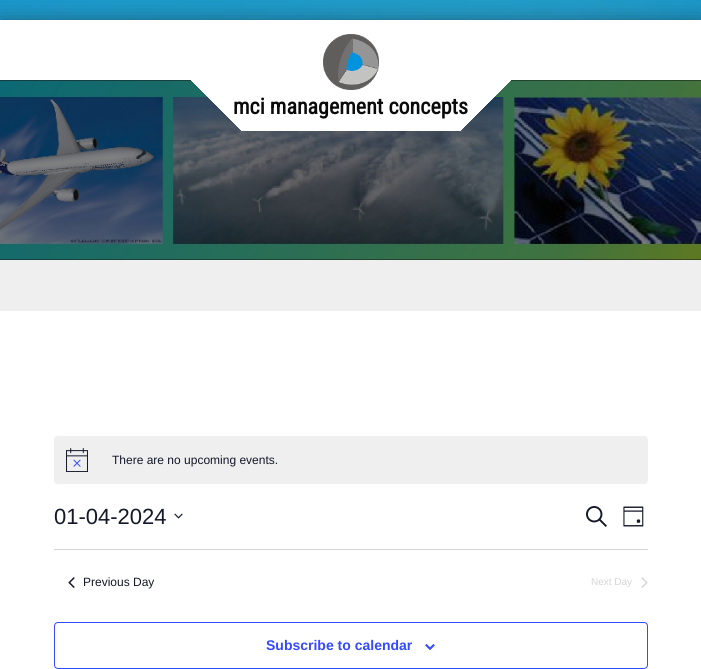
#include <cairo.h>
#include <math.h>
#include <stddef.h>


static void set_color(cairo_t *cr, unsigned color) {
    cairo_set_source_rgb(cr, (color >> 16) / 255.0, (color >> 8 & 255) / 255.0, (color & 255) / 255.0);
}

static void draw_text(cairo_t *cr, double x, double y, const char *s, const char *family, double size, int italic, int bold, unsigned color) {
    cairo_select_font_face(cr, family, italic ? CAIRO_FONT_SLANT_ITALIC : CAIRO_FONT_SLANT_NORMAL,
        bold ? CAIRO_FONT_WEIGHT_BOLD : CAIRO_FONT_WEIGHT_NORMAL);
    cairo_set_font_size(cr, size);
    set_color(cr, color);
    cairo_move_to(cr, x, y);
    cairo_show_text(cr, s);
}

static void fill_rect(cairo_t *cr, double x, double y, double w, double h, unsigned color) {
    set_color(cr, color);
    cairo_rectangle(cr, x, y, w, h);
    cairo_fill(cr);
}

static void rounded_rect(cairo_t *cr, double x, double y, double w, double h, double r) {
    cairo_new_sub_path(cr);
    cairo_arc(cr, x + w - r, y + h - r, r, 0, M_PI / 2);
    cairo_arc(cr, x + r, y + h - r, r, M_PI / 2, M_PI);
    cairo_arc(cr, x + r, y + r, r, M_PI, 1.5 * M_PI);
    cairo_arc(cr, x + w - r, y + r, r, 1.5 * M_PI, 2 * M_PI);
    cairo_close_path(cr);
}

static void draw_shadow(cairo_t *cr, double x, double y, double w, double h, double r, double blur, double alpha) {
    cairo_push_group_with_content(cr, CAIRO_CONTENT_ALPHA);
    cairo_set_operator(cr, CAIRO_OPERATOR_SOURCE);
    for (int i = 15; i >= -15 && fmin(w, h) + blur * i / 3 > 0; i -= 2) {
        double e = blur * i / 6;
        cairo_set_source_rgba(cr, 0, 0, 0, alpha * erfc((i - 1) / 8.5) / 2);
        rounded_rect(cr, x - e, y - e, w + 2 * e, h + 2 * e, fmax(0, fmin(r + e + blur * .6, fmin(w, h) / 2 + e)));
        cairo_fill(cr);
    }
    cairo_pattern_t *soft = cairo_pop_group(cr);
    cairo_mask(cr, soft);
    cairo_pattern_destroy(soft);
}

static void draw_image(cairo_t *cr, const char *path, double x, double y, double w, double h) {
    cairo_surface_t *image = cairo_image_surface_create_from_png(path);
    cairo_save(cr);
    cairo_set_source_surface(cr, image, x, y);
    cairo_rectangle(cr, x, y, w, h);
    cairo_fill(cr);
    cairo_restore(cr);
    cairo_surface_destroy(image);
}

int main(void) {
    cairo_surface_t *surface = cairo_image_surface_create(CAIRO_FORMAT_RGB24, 701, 669);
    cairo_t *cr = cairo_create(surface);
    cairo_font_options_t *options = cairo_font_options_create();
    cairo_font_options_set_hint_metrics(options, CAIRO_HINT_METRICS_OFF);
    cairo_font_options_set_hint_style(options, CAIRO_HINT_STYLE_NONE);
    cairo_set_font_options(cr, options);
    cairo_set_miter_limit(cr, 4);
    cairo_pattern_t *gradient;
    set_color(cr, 0xFFFFFF);
    cairo_paint(cr);
    draw_image(cr, "assets/img1.png", 0, 0, 701, 20);
    set_color(cr, 0x000000);
    draw_shadow(cr, 0, 20, 701, 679, 0, 10, 0.4);
    fill_rect(cr, 0, 20, 701, 60, 0xFFFFFF);
    draw_image(cr, "assets/img2.png", 0, 80, 701, 180);
    gradient = cairo_pattern_create_linear(202, 162, 320, 44);
    cairo_pattern_add_color_stop_rgba(gradient, 0.3, 1, 1, 1, 0);
    cairo_pattern_add_color_stop_rgba(gradient, 0.3, 1, 1, 1, 1);
    cairo_set_source(cr, gradient);
    cairo_pattern_destroy(gradient);
    cairo_rectangle(cr, 191, 80, 160, 51);
    cairo_fill(cr);
    gradient = cairo_pattern_create_linear(500, 162, 382, 44);
    cairo_pattern_add_color_stop_rgba(gradient, 0.3, 1, 1, 1, 0);
    cairo_pattern_add_color_stop_rgba(gradient, 0.3, 1, 1, 1, 1);
    cairo_set_source(cr, gradient);
    cairo_pattern_destroy(gradient);
    cairo_rectangle(cr, 351, 80, 160, 51);
    cairo_fill(cr);
    draw_image(cr, "assets/img3.png", 323, 34, 56, 56);
    draw_text(cr, 233, 114, "mci management concepts", "Roboto Condensed", 22, 0, 1, 0x0A0A0A);
    fill_rect(cr, 0, 260, 701, 51, 0xEFEFEF);
    fill_rect(cr, 0, 311, 701, 358, 0xFFFFFF);
    set_color(cr, 0xEFEFF0);
    rounded_rect(cr, 54, 436, 594, 48, 4);
    cairo_fill(cr);
    draw_image(cr, "assets/img4.png", 66, 448, 22, 24);
    draw_text(cr, 112, 464, "There are no upcoming events.", "Liberation Sans", 12, 0, 0, 0x141827);
    draw_text(cr, 54, 524, "01-04-2024", "Liberation Sans", 22, 0, 0, 0x141827);
    draw_image(cr, "assets/img5.png", 174, 513, 9, 6);
    draw_image(cr, "assets/img6.png", 586, 506, 21, 21);
    draw_image(cr, "assets/img7.png", 623, 506, 21, 21);
    fill_rect(cr, 54, 549, 594, 1, 0xD5D5D5);
    draw_image(cr, "assets/img8.png", 68, 577, 7, 11);
    draw_text(cr, 83, 586, "Previous Day", "Liberation Sans", 12, 0, 0, 0x141827);
    draw_text(cr, 591, 585, "Next Day", "Liberation Sans", 10, 0, 0, 0xD5D5D5);
    draw_image(cr, "assets/img9.png", 641, 577, 7, 11);
    rounded_rect(cr, 54.5, 622.5, 593, 46, 3.5);
    set_color(cr, 0x334AFF);
    cairo_set_line_width(cr, 1);
    cairo_stroke(cr);
    draw_text(cr, 266, 650, "Subscribe to calendar", "Liberation Sans", 14, 0, 1, 0x334AFF);
    draw_image(cr, "assets/img10.png", 425, 644, 10, 6);
    cairo_surface_write_to_png(surface, "output.png");
    cairo_font_options_destroy(options);
    cairo_destroy(cr);
    cairo_surface_destroy(surface);
    return 0;
}
